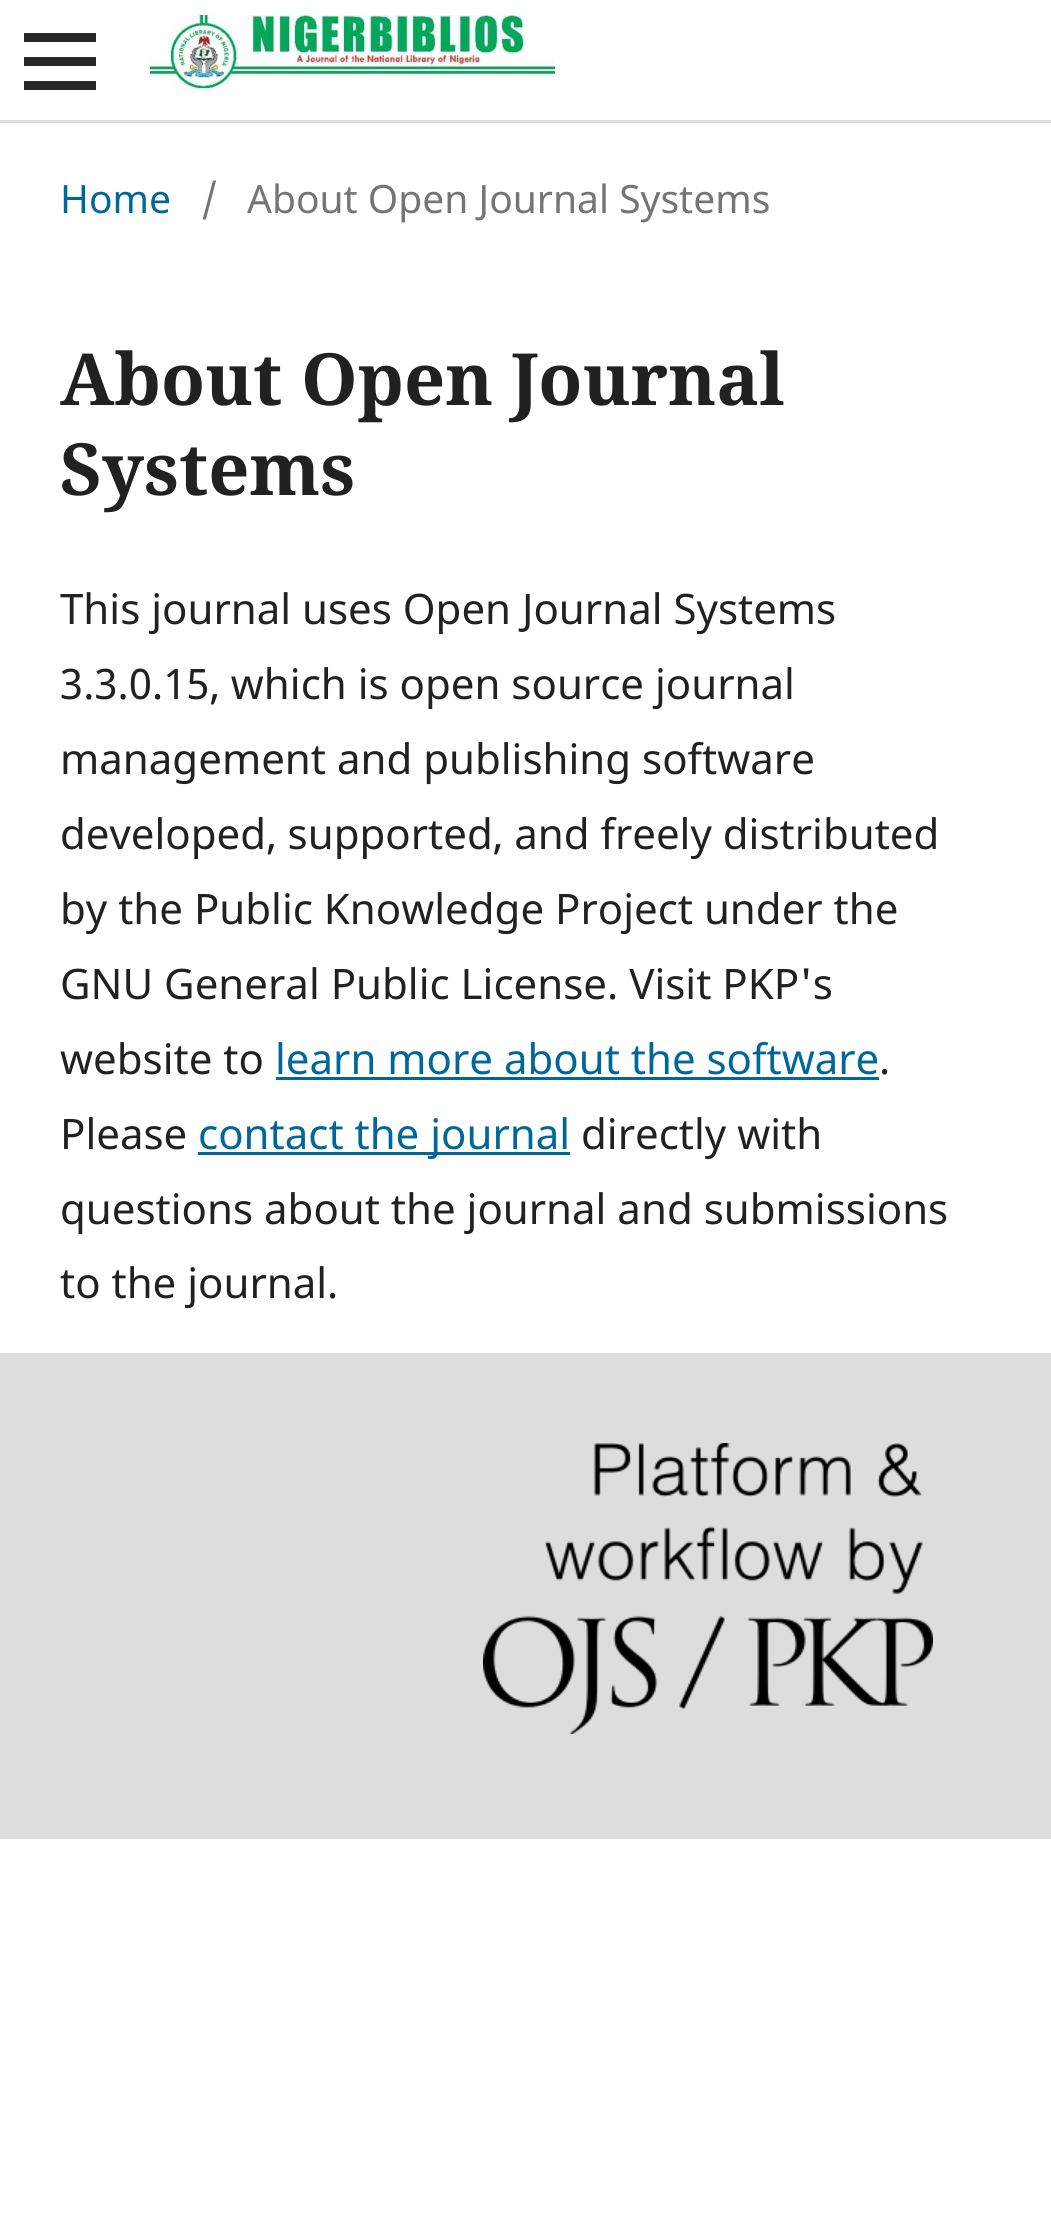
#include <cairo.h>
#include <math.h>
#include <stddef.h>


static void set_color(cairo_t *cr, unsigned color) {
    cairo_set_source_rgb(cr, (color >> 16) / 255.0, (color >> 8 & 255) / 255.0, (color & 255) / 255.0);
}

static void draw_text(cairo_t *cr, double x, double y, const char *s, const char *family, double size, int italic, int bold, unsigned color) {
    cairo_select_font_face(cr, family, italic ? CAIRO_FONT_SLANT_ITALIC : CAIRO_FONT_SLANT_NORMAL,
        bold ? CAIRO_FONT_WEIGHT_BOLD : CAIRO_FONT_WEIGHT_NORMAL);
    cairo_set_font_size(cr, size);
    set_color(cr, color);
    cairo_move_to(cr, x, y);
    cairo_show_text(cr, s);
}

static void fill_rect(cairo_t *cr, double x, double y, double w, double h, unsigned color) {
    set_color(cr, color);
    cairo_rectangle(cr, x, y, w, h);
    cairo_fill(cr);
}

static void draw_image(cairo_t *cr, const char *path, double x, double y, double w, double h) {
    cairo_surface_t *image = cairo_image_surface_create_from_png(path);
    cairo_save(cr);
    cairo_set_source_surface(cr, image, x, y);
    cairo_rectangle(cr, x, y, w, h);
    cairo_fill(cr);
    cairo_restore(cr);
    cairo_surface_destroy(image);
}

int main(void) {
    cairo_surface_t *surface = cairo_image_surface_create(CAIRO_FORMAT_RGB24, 1051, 2214);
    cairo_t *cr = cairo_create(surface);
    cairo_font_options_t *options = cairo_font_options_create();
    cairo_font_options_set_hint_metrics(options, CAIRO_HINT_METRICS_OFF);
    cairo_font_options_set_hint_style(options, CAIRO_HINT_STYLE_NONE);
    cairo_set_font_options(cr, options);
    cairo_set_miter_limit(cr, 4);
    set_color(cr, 0xFFFFFF);
    cairo_paint(cr);
    fill_rect(cr, 0, 120, 1051, 3, 0xDDDDDD);
    fill_rect(cr, 24, 81, 72, 9, 0x292929);
    fill_rect(cr, 24, 33, 72, 9, 0x292929);
    fill_rect(cr, 24, 57, 72, 9, 0x292929);
    draw_image(cr, "assets/img1.png", 150, 15, 405, 80);
    draw_text(cr, 60, 213, "Home", "Noto Sans", 39, 0, 0, 0x006798);
    draw_text(cr, 201, 213, "/", "Noto Sans", 39, 0, 0, 0x757575);
    draw_text(cr, 247, 213, "About Open Journal Systems", "Noto Sans", 39, 0, 0, 0x757575);
    draw_text(cr, 60, 405, "About Open Journal", "Noto Serif", 72, 0, 1, 0x212121);
    draw_text(cr, 60, 495, "Systems", "Noto Serif", 72, 0, 1, 0x212121);
    draw_text(cr, 60, 624, "This journal uses Open Journal Systems", "Noto Sans", 42, 0, 0, 0x212121);
    draw_text(cr, 60, 699, "3.3.0.15, which is open source journal", "Noto Sans", 42, 0, 0, 0x212121);
    draw_text(cr, 60, 774, "management and publishing software", "Noto Sans", 42, 0, 0, 0x212121);
    draw_text(cr, 60, 849, "developed, supported, and freely distributed", "Noto Sans", 42, 0, 0, 0x212121);
    draw_text(cr, 60, 924, "by the Public Knowledge Project under the", "Noto Sans", 42, 0, 0, 0x212121);
    draw_text(cr, 60, 999, "GNU General Public License. Visit PKP's", "Noto Sans", 42, 0, 0, 0x212121);
    draw_text(cr, 60, 1074, "website to", "Noto Sans", 42, 0, 0, 0x212121);
    draw_text(cr, 275, 1074, "learn more about the software", "Noto Sans", 42, 0, 0, 0x006798);
    fill_rect(cr, 276, 1077, 603, 3, 0x006798);
    draw_text(cr, 879, 1074, ".", "Noto Sans", 42, 0, 0, 0x212121);
    draw_text(cr, 60, 1149, "Please", "Noto Sans", 42, 0, 0, 0x212121);
    fill_rect(cr, 198, 1152, 372, 3, 0x006798);
    draw_text(cr, 198, 1149, "contact the journal", "Noto Sans", 42, 0, 0, 0x006798);
    draw_text(cr, 581, 1149, "directly with", "Noto Sans", 42, 0, 0, 0x212121);
    draw_text(cr, 60, 1224, "questions about the journal and submissions", "Noto Sans", 42, 0, 0, 0x212121);
    draw_text(cr, 60, 1298, "to the journal.", "Noto Sans", 42, 0, 0, 0x212121);
    fill_rect(cr, 0, 1353, 1051, 486, 0xDDDDDD);
    draw_image(cr, "assets/img2.png", 483, 1443, 450, 291);
    cairo_surface_write_to_png(surface, "output.png");
    cairo_font_options_destroy(options);
    cairo_destroy(cr);
    cairo_surface_destroy(surface);
    return 0;
}
